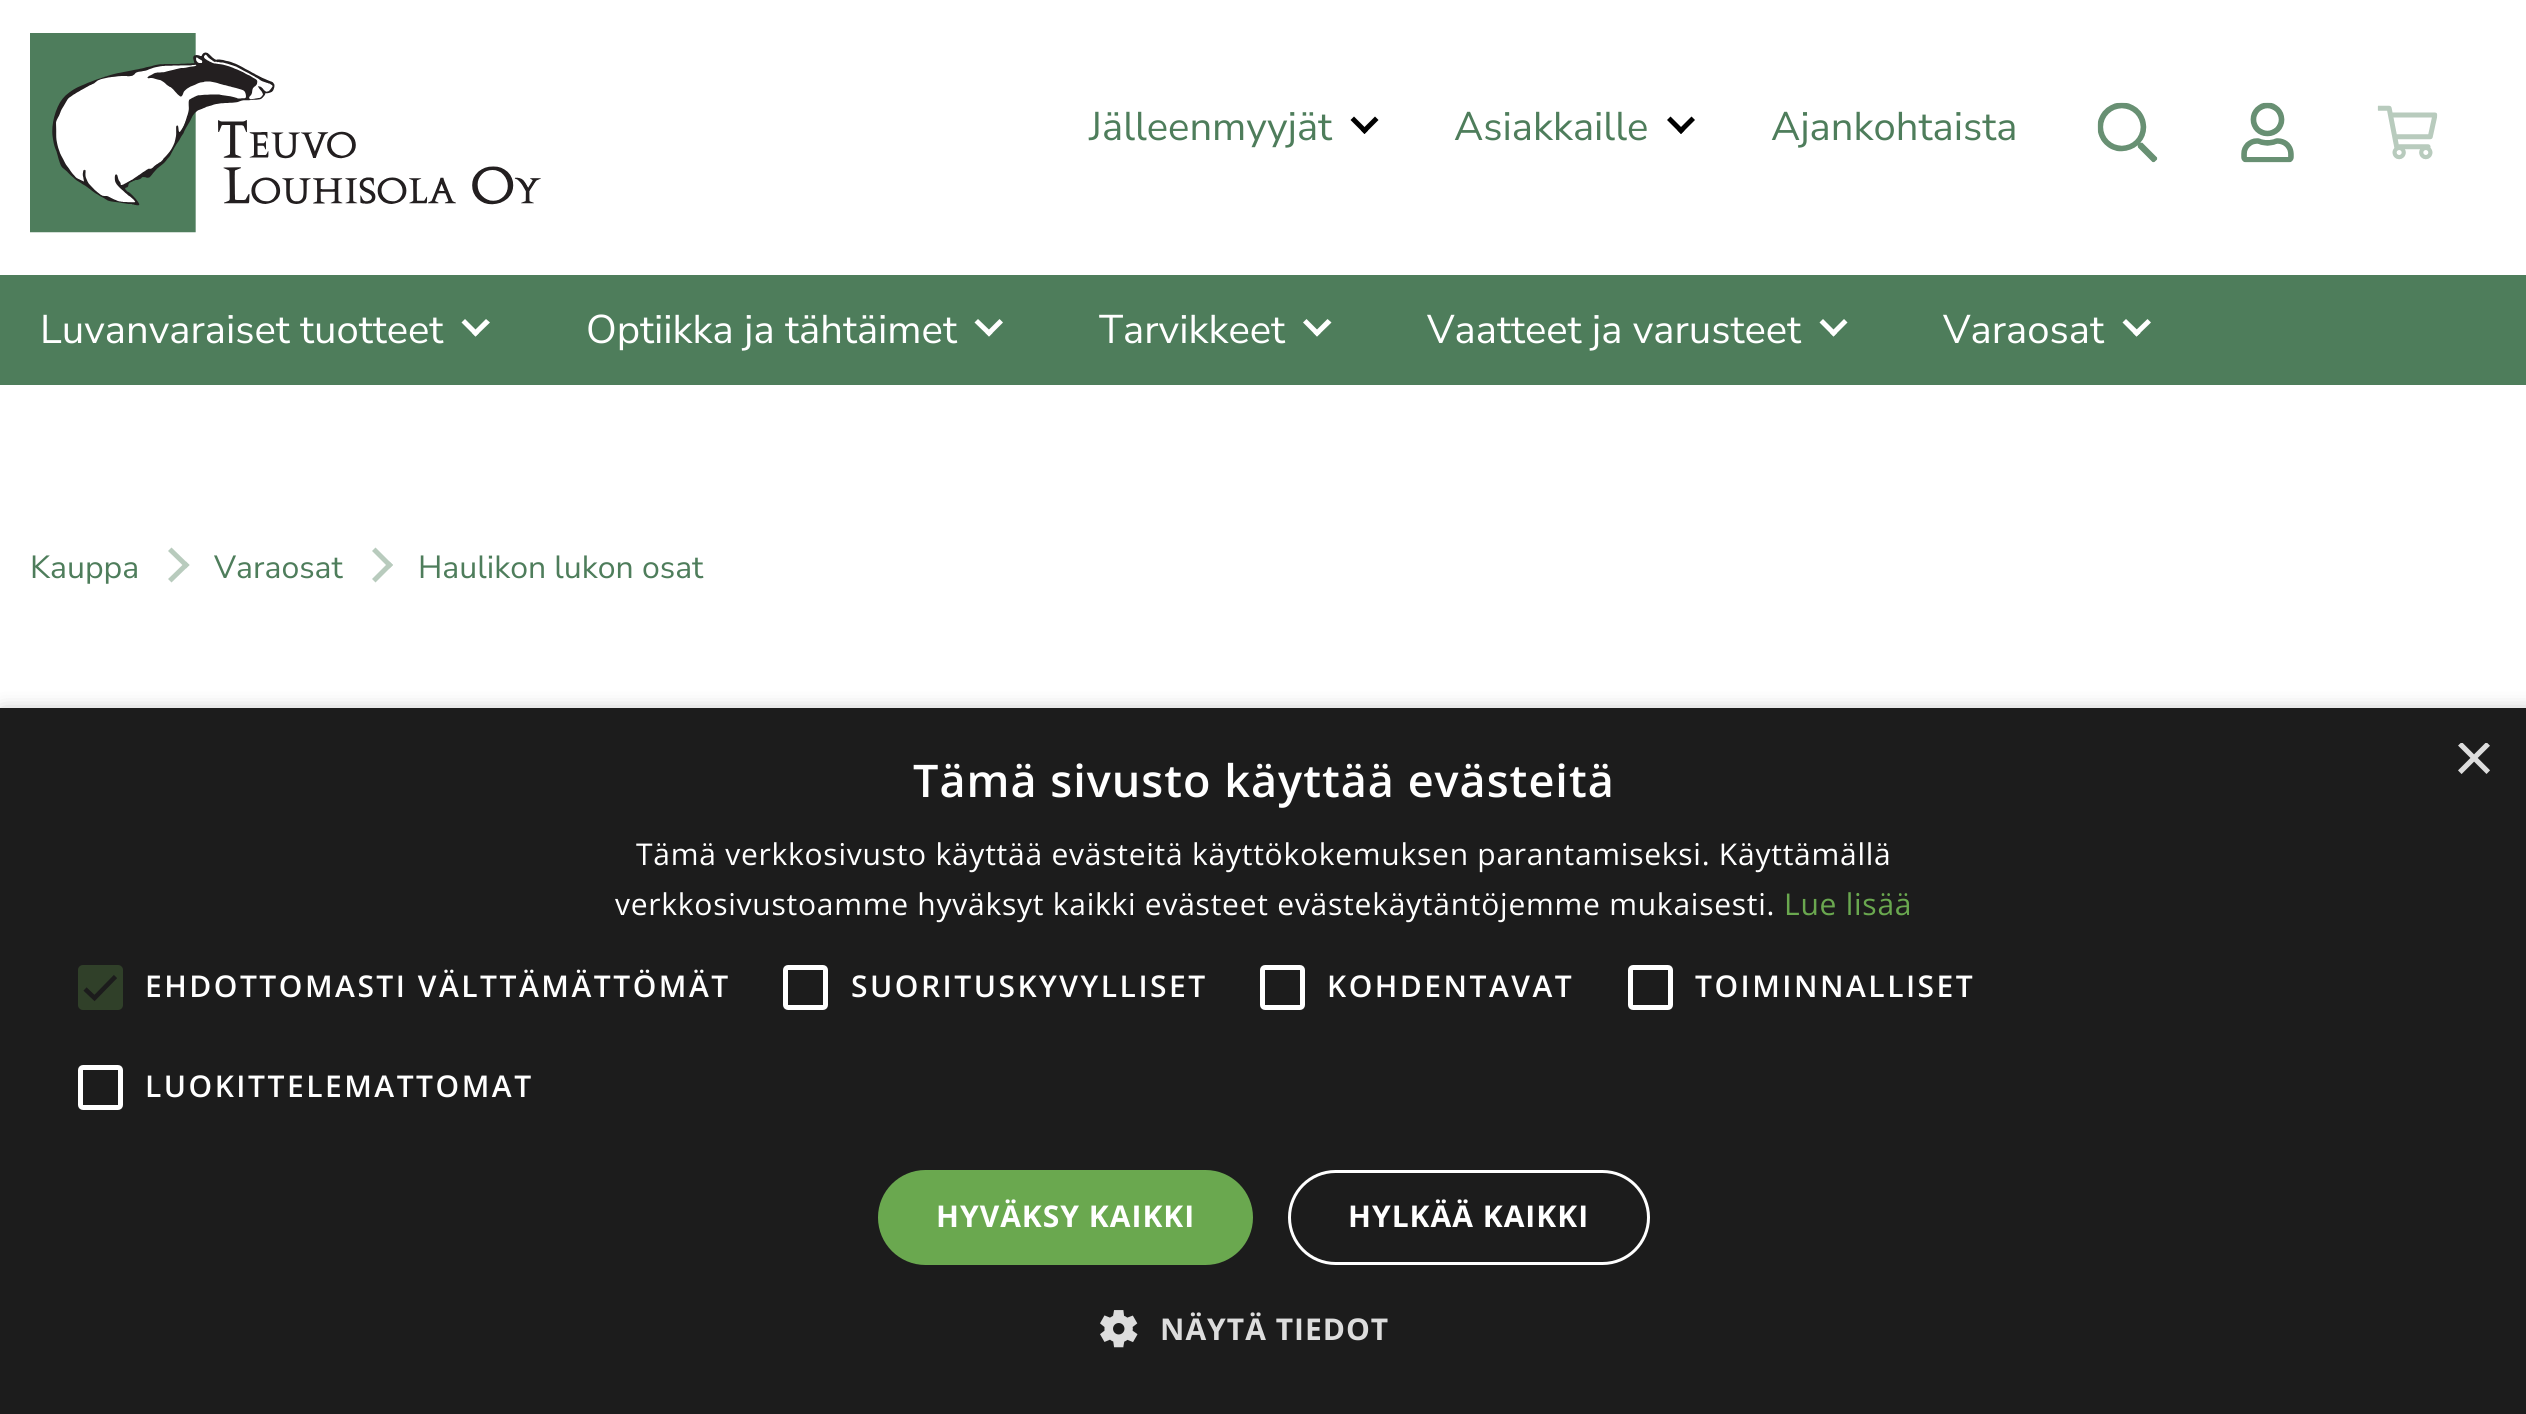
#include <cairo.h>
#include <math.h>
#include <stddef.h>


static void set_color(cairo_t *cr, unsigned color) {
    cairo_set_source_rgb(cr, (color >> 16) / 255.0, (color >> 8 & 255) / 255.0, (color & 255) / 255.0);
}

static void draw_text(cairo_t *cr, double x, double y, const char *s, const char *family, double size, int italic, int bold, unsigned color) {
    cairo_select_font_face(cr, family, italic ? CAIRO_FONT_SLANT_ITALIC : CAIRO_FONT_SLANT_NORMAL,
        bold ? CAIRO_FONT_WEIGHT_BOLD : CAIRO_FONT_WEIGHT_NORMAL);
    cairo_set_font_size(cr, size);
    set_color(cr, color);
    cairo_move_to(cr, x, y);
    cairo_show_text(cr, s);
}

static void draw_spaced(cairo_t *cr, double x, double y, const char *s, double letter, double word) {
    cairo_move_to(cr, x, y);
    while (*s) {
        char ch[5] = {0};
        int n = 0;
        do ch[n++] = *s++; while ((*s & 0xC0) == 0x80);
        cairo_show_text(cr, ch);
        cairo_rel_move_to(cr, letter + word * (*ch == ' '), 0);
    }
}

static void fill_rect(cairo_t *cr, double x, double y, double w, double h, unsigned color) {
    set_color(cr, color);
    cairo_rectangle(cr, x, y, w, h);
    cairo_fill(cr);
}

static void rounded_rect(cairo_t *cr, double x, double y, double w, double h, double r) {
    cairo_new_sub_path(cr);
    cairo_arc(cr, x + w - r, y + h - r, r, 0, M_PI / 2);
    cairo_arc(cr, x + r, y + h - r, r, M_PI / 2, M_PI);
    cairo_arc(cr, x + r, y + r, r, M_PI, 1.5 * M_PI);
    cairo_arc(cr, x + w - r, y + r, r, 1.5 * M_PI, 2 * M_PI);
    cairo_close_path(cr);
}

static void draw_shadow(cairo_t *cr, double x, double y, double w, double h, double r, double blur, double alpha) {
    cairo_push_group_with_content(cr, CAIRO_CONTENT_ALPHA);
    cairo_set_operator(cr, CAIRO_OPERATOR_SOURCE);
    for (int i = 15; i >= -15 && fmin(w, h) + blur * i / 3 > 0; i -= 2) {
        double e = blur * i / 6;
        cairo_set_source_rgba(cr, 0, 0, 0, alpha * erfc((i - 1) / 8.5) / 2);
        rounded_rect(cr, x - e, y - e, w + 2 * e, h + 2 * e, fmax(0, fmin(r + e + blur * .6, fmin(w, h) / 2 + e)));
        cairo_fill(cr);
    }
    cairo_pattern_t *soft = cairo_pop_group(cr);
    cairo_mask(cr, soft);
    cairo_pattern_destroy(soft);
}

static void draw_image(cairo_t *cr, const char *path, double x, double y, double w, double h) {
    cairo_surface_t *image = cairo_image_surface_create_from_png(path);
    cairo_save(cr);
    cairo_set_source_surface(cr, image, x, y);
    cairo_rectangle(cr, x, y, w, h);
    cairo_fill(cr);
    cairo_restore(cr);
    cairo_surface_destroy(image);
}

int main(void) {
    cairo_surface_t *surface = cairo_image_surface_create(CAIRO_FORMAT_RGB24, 2526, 1414);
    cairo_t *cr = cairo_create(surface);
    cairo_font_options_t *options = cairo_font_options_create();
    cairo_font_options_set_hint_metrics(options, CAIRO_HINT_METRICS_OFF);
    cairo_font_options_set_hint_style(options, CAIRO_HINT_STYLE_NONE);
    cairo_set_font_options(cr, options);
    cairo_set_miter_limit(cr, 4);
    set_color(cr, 0xFFFFFF);
    cairo_paint(cr);
    draw_image(cr, "assets/img1.png", 30, 33, 511, 200);
    draw_text(cr, 1089, 140, "Jälleenmyyjät", "Nunito Sans", 40, 0, 0, 0x4E7D5B);
    set_color(cr, 0x000000);
    cairo_new_path(cr);
    cairo_move_to(cr, 1361, 130.5);
    cairo_line_to(cr, 1375, 116.5);
    cairo_line_to(cr, 1378.5, 120);
    cairo_line_to(cr, 1364.5, 134);
    cairo_close_path(cr);
    cairo_fill(cr);
    cairo_new_path(cr);
    cairo_move_to(cr, 1350.5, 120);
    cairo_line_to(cr, 1354, 116.5);
    cairo_line_to(cr, 1368, 130.5);
    cairo_line_to(cr, 1364.5, 134);
    cairo_close_path(cr);
    cairo_fill(cr);
    draw_text(cr, 1454, 140, "Asiakkaille", "Nunito Sans", 40, 0, 0, 0x4E7D5B);
    set_color(cr, 0x000000);
    cairo_new_path(cr);
    cairo_move_to(cr, 1677.5, 130.5);
    cairo_line_to(cr, 1691.5, 116.5);
    cairo_line_to(cr, 1695, 120);
    cairo_line_to(cr, 1681, 134);
    cairo_close_path(cr);
    cairo_fill(cr);
    cairo_new_path(cr);
    cairo_move_to(cr, 1667, 120);
    cairo_line_to(cr, 1670.5, 116.5);
    cairo_line_to(cr, 1684.5, 130.5);
    cairo_line_to(cr, 1681, 134);
    cairo_close_path(cr);
    cairo_fill(cr);
    draw_text(cr, 1771, 140, "Ajankohtaista", "Nunito Sans", 40, 0, 0, 0x4E7D5B);
    draw_image(cr, "assets/img2.png", 2097, 102, 61, 61);
    draw_image(cr, "assets/img3.png", 2241, 102, 53, 61);
    draw_image(cr, "assets/img4.png", 2377, 105, 61, 55);
    fill_rect(cr, 0, 275, 2526, 110, 0x4E7D5B);
    draw_text(cr, 40, 343, "Luvanvaraiset tuotteet", "Nunito Sans", 40, 0, 0, 0xFFFFFF);
    cairo_new_path(cr);
    cairo_move_to(cr, 472, 333);
    cairo_line_to(cr, 486, 319);
    cairo_line_to(cr, 490, 322.5);
    cairo_line_to(cr, 475.5, 336.5);
    cairo_close_path(cr);
    cairo_fill(cr);
    cairo_new_path(cr);
    cairo_move_to(cr, 461.5, 322.5);
    cairo_line_to(cr, 465, 319);
    cairo_line_to(cr, 479, 333);
    cairo_line_to(cr, 475.5, 336.5);
    cairo_close_path(cr);
    cairo_fill(cr);
    draw_text(cr, 586, 343, "Optiikka ja tähtäimet", "Nunito Sans", 40, 0, 0, 0xFFFFFF);
    cairo_new_path(cr);
    cairo_move_to(cr, 985.5, 333);
    cairo_line_to(cr, 999.5, 319);
    cairo_line_to(cr, 1003, 322.5);
    cairo_line_to(cr, 989, 336.5);
    cairo_close_path(cr);
    cairo_fill(cr);
    cairo_new_path(cr);
    cairo_move_to(cr, 974.5, 322.5);
    cairo_line_to(cr, 978, 319);
    cairo_line_to(cr, 992.5, 333);
    cairo_line_to(cr, 989, 336.5);
    cairo_close_path(cr);
    cairo_fill(cr);
    draw_text(cr, 1099, 343, "Tarvikkeet", "Nunito Sans", 40, 0, 0, 0xFFFFFF);
    cairo_new_path(cr);
    cairo_move_to(cr, 1313.5, 333);
    cairo_line_to(cr, 1327.5, 319);
    cairo_line_to(cr, 1331.5, 322.5);
    cairo_line_to(cr, 1317, 336.5);
    cairo_close_path(cr);
    cairo_fill(cr);
    cairo_new_path(cr);
    cairo_move_to(cr, 1303, 322.5);
    cairo_line_to(cr, 1306.5, 319);
    cairo_line_to(cr, 1320.5, 333);
    cairo_line_to(cr, 1317, 336.5);
    cairo_close_path(cr);
    cairo_fill(cr);
    draw_text(cr, 1427, 343, "Vaatteet ja varusteet", "Nunito Sans", 40, 0, 0, 0xFFFFFF);
    cairo_new_path(cr);
    cairo_move_to(cr, 1830, 333);
    cairo_line_to(cr, 1844, 319);
    cairo_line_to(cr, 1847.5, 322.5);
    cairo_line_to(cr, 1833.5, 336.5);
    cairo_close_path(cr);
    cairo_fill(cr);
    cairo_new_path(cr);
    cairo_move_to(cr, 1819.5, 322.5);
    cairo_line_to(cr, 1823, 319);
    cairo_line_to(cr, 1837, 333);
    cairo_line_to(cr, 1833.5, 336.5);
    cairo_close_path(cr);
    cairo_fill(cr);
    draw_text(cr, 1943, 343, "Varaosat", "Nunito Sans", 40, 0, 0, 0xFFFFFF);
    cairo_new_path(cr);
    cairo_move_to(cr, 2133, 333);
    cairo_line_to(cr, 2147.5, 319);
    cairo_line_to(cr, 2151, 322.5);
    cairo_line_to(cr, 2136.5, 336.5);
    cairo_close_path(cr);
    cairo_fill(cr);
    cairo_new_path(cr);
    cairo_move_to(cr, 2122.5, 322.5);
    cairo_line_to(cr, 2126, 319);
    cairo_line_to(cr, 2140.5, 333);
    cairo_line_to(cr, 2136.5, 336.5);
    cairo_close_path(cr);
    cairo_fill(cr);
    draw_text(cr, 30, 578, "Kauppa", "Nunito Sans", 32, 0, 0, 0x4E7D5B);
    set_color(cr, 0xB8CBBD);
    cairo_new_path(cr);
    cairo_move_to(cr, 168, 551);
    cairo_line_to(cr, 171.5, 547.5);
    cairo_line_to(cr, 189.5, 565);
    cairo_line_to(cr, 186, 568.5);
    cairo_close_path(cr);
    cairo_fill(cr);
    cairo_new_path(cr);
    cairo_move_to(cr, 168, 579);
    cairo_line_to(cr, 186, 561.5);
    cairo_line_to(cr, 189.5, 565);
    cairo_line_to(cr, 171.5, 582.5);
    cairo_close_path(cr);
    cairo_fill(cr);
    draw_text(cr, 214, 578, "Varaosat", "Nunito Sans", 32, 0, 0, 0x4E7D5B);
    set_color(cr, 0xB8CBBD);
    cairo_new_path(cr);
    cairo_move_to(cr, 372, 551);
    cairo_line_to(cr, 375.5, 547.5);
    cairo_line_to(cr, 393, 565);
    cairo_line_to(cr, 389.5, 568.5);
    cairo_close_path(cr);
    cairo_fill(cr);
    cairo_new_path(cr);
    cairo_move_to(cr, 372, 579);
    cairo_line_to(cr, 389.5, 561.5);
    cairo_line_to(cr, 393, 565);
    cairo_line_to(cr, 375.5, 582.5);
    cairo_close_path(cr);
    cairo_fill(cr);
    draw_text(cr, 418, 578, "Haulikon lukon osat", "Nunito Sans", 32, 0, 0, 0x4E7D5B);
    set_color(cr, 0x000000);
    draw_shadow(cr, 3, 713, 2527, 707, 0, 10, 0.35);
    fill_rect(cr, 0, 708, 2526, 706, 0x1C1C1C);
    cairo_save(cr);
    cairo_rectangle(cr, 2453, 743, 37, 37);
    cairo_clip(cr);
    draw_text(cr, 2453, 782, "×", "Liberation Sans", 72, 0, 0, 0xDDDDDD);
    cairo_restore(cr);
    cairo_select_font_face(cr, "Open Sans SemiBold", CAIRO_FONT_SLANT_NORMAL, CAIRO_FONT_WEIGHT_NORMAL);
    cairo_set_font_size(cr, 45);
    set_color(cr, 0xFFFFFF);
    draw_spaced(cr, 913, 797, "Tämä sivusto käyttää evästeitä", 1, 0);
    cairo_select_font_face(cr, "Open Sans", CAIRO_FONT_SLANT_NORMAL, CAIRO_FONT_WEIGHT_NORMAL);
    cairo_set_font_size(cr, 30);
    draw_spaced(cr, 636, 865, "Tämä verkkosivusto käyttää evästeitä käyttökokemuksen parantamiseksi. Käyttämällä", 0.75, 0);
    draw_spaced(cr, 615, 915, "verkkosivustoamme hyväksyt kaikki evästeet evästekäytäntöjemme mukaisesti.", 0.75, 0);
    set_color(cr, 0x6AA84F);
    draw_spaced(cr, 1784, 915, "Lue lisää", 0.75, 0);
    set_color(cr, 0x304029);
    rounded_rect(cr, 78, 965, 45, 45, 5);
    cairo_fill(cr);
    cairo_new_path(cr);
    cairo_move_to(cr, 85, 989);
    cairo_line_to(cr, 94.5, 998);
    cairo_line_to(cr, 115.5, 976.5);
    set_color(cr, 0x1C1C1C);
    cairo_set_line_width(cr, 4.6);
    cairo_stroke(cr);
    cairo_select_font_face(cr, "Open Sans SemiBold", CAIRO_FONT_SLANT_NORMAL, CAIRO_FONT_WEIGHT_NORMAL);
    set_color(cr, 0xFFFFFF);
    draw_spaced(cr, 145, 997, "EHDOTTOMASTI VÄLTTÄMÄTTÖMÄT", 2.5, 0);
    rounded_rect(cr, 785.5, 967.5, 40, 40, 2.5);
    cairo_set_line_width(cr, 5);
    cairo_stroke(cr);
    draw_spaced(cr, 851, 997, "SUORITUSKYVYLLISET", 2.5, 0);
    rounded_rect(cr, 1262.5, 967.5, 40, 40, 2.5);
    cairo_stroke(cr);
    draw_spaced(cr, 1327, 997, "KOHDENTAVAT", 2.5, 0);
    rounded_rect(cr, 1630.5, 967.5, 40, 40, 2.5);
    cairo_stroke(cr);
    draw_spaced(cr, 1695, 997, "TOIMINNALLISET", 2.5, 0);
    rounded_rect(cr, 80.5, 1067.5, 40, 40, 2.5);
    cairo_stroke(cr);
    draw_spaced(cr, 145, 1097, "LUOKITTELEMATTOMAT", 2.5, 0);
    set_color(cr, 0x6AA84F);
    rounded_rect(cr, 878, 1170, 375, 95, 47.5);
    cairo_fill(cr);
    cairo_select_font_face(cr, "Open Sans", CAIRO_FONT_SLANT_NORMAL, CAIRO_FONT_WEIGHT_BOLD);
    set_color(cr, 0xFFFFFF);
    draw_spaced(cr, 936, 1227, "HYVÄKSY KAIKKI", 1, 0);
    rounded_rect(cr, 1289.5, 1171.5, 359, 92, 46);
    cairo_set_line_width(cr, 3);
    cairo_stroke(cr);
    draw_spaced(cr, 1348, 1227, "HYLKÄÄ KAIKKI", 1, 0);
    draw_image(cr, "assets/img5.png", 1100, 1310, 38, 38);
    set_color(cr, 0xDDDDDD);
    draw_spaced(cr, 1160, 1340, "NÄYTÄ TIEDOT", 1, 0);
    cairo_surface_write_to_png(surface, "output.png");
    cairo_font_options_destroy(options);
    cairo_destroy(cr);
    cairo_surface_destroy(surface);
    return 0;
}
